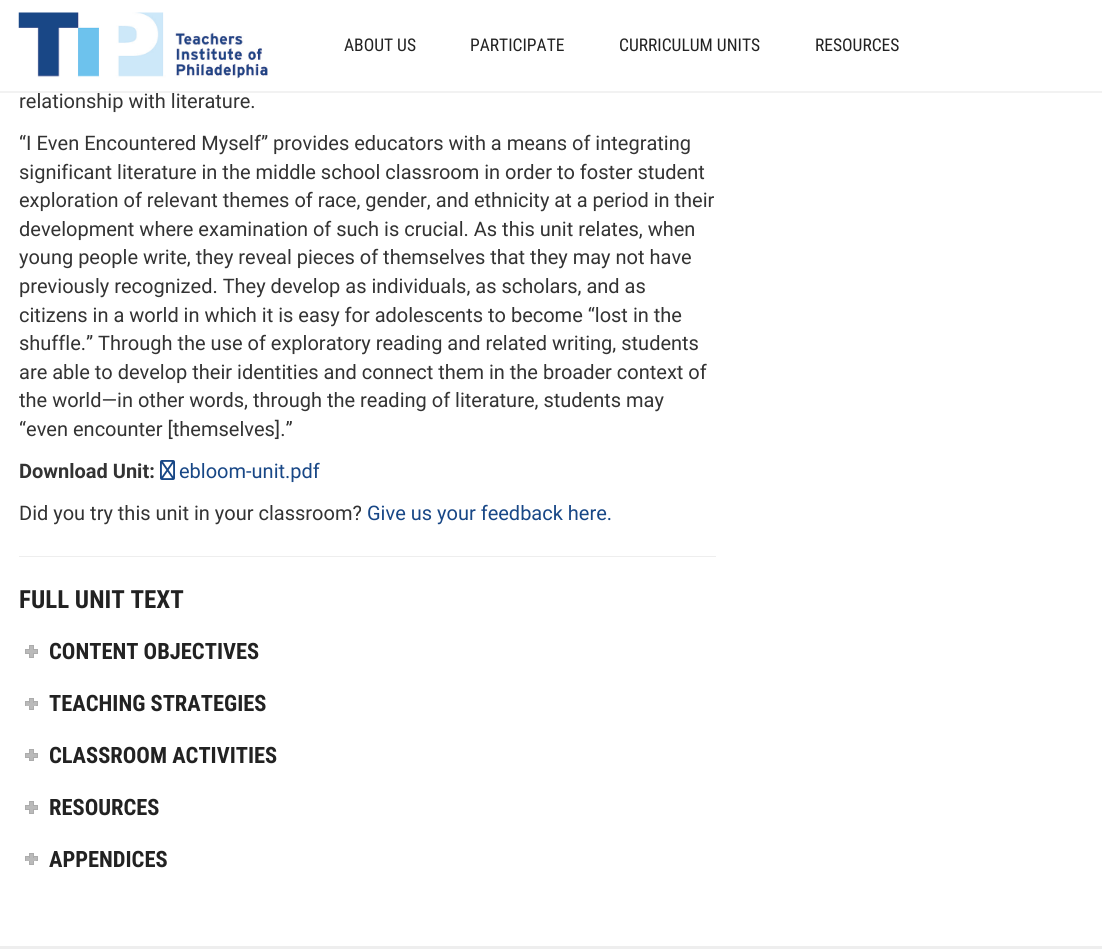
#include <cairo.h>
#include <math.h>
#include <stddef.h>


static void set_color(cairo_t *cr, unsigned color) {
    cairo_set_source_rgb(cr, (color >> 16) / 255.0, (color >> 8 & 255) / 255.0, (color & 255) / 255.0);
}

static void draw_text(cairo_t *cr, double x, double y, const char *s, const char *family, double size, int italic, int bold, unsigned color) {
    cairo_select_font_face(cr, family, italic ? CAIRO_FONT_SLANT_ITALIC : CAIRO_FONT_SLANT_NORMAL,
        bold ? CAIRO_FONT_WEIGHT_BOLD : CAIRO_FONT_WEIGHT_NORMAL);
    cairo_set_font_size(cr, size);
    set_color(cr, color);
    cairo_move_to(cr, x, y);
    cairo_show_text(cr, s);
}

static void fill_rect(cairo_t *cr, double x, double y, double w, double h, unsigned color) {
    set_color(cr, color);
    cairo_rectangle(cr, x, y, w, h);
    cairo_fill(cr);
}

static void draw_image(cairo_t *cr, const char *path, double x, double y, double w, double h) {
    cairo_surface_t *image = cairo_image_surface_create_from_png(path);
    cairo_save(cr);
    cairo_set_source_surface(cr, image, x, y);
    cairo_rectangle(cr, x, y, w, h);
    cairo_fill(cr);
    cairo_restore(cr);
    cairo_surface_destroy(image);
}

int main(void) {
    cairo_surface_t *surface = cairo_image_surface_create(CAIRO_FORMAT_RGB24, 1102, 949);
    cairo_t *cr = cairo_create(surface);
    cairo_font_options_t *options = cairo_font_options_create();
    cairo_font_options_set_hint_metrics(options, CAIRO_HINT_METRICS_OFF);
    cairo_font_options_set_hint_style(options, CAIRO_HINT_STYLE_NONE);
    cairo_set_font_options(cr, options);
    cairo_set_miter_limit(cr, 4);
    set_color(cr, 0xFFFFFF);
    cairo_paint(cr);
    set_color(cr, 0xF2F2F2);
    cairo_new_path(cr);
    cairo_move_to(cr, 0, 91);
    cairo_line_to(cr, 0, 93);
    cairo_line_to(cr, 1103, 93);
    cairo_line_to(cr, 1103, 1);
    cairo_line_to(cr, 1102, 1);
    cairo_line_to(cr, 1102, 91);
    cairo_close_path(cr);
    cairo_fill(cr);
    draw_image(cr, "assets/img1.png", 18, 12, 250, 67);
    draw_text(cr, 344, 51, "ABOUT US", "Roboto Condensed", 17.5, 0, 0, 0x222222);
    draw_text(cr, 470, 51, "PARTICIPATE", "Roboto Condensed", 17.5, 0, 0, 0x222222);
    draw_text(cr, 619, 51, "CURRICULUM UNITS", "Roboto Condensed", 17.5, 0, 0, 0x222222);
    draw_text(cr, 815, 51, "RESOURCES", "Roboto Condensed", 17.5, 0, 0, 0x222222);
    draw_text(cr, 19, 108, "relationship with literature.", "Roboto", 20, 0, 0, 0x333333);
    draw_text(cr, 19, 150, "“I Even Encountered Myself” provides educators with a means of integrating", "Roboto", 20, 0, 0, 0x333333);
    draw_text(cr, 19, 179, "significant literature in the middle school classroom in order to foster student", "Roboto", 20, 0, 0, 0x333333);
    draw_text(cr, 19, 207, "exploration of relevant themes of race, gender, and ethnicity at a period in their", "Roboto", 20, 0, 0, 0x333333);
    draw_text(cr, 19, 236, "development where examination of such is crucial. As this unit relates, when", "Roboto", 20, 0, 0, 0x333333);
    draw_text(cr, 19, 264, "young people write, they reveal pieces of themselves that they may not have", "Roboto", 20, 0, 0, 0x333333);
    draw_text(cr, 19, 293, "previously recognized. They develop as individuals, as scholars, and as", "Roboto", 20, 0, 0, 0x333333);
    draw_text(cr, 19, 322, "citizens in a world in which it is easy for adolescents to become “lost in the", "Roboto", 20, 0, 0, 0x333333);
    draw_text(cr, 19, 350, "shuffle.” Through the use of exploratory reading and related writing, students", "Roboto", 20, 0, 0, 0x333333);
    draw_text(cr, 19, 379, "are able to develop their identities and connect them in the broader context of", "Roboto", 20, 0, 0, 0x333333);
    draw_text(cr, 19, 407, "the world—in other words, through the reading of literature, students may", "Roboto", 20, 0, 0, 0x333333);
    draw_text(cr, 19, 436, "“even encounter [themselves].”", "Roboto", 20, 0, 0, 0x333333);
    draw_text(cr, 19, 478, "Download Unit:", "Roboto", 20, 0, 1, 0x333333);
    draw_image(cr, "assets/img2.png", 160, 460, 15, 20);
    draw_text(cr, 179, 478, "ebloom-unit.pdf", "Roboto", 20, 0, 0, 0x184786);
    draw_text(cr, 19, 520, "Did you try this unit in your classroom?", "Roboto", 20, 0, 0, 0x333333);
    draw_text(cr, 367, 520, "Give us your feedback here.", "Roboto", 20, 0, 0, 0x184786);
    fill_rect(cr, 19, 556, 697, 1, 0xEEEEEE);
    draw_text(cr, 19, 608, "FULL UNIT TEXT", "Roboto Condensed", 25, 0, 1, 0x222222);
    fill_rect(cr, 36, 650, 2, 3, 0xBABABA);
    cairo_rectangle(cr, 25.5, 649.5, 12, 4);
    set_color(cr, 0xACACAC);
    cairo_set_line_width(cr, 1);
    cairo_stroke(cr);
    set_color(cr, 0xBABABA);
    cairo_rectangle(cr, 29.5, 645.5, 4, 12);
    cairo_fill_preserve(cr);
    set_color(cr, 0xACACAC);
    cairo_stroke(cr);
    fill_rect(cr, 26, 650, 10, 3, 0xBABABA);
    draw_text(cr, 49, 659, "CONTENT OBJECTIVES", "Roboto Condensed", 22.5, 0, 1, 0x222222);
    set_color(cr, 0xBABABA);
    cairo_rectangle(cr, 25.5, 701.5, 12, 4);
    cairo_fill_preserve(cr);
    set_color(cr, 0xACACAC);
    cairo_stroke(cr);
    set_color(cr, 0xBABABA);
    cairo_rectangle(cr, 29.5, 698.5, 4, 11);
    cairo_fill_preserve(cr);
    set_color(cr, 0xACACAC);
    cairo_stroke(cr);
    fill_rect(cr, 26, 703, 10, 3, 0xBABABA);
    draw_text(cr, 49, 711, "TEACHING STRATEGIES", "Roboto Condensed", 22.5, 0, 1, 0x222222);
    fill_rect(cr, 36, 754, 2, 3, 0xBABABA);
    cairo_rectangle(cr, 25.5, 753.5, 12, 4);
    set_color(cr, 0xACACAC);
    cairo_stroke(cr);
    set_color(cr, 0xBABABA);
    cairo_rectangle(cr, 29.5, 749.5, 4, 11);
    cairo_fill_preserve(cr);
    set_color(cr, 0xACACAC);
    cairo_stroke(cr);
    fill_rect(cr, 26, 754, 10, 3, 0xBABABA);
    draw_text(cr, 49, 763, "CLASSROOM ACTIVITIES", "Roboto Condensed", 22.5, 0, 1, 0x222222);
    fill_rect(cr, 36, 806, 2, 3, 0xBABABA);
    cairo_rectangle(cr, 25.5, 805.5, 12, 4);
    set_color(cr, 0xACACAC);
    cairo_stroke(cr);
    set_color(cr, 0xBABABA);
    cairo_rectangle(cr, 29.5, 801.5, 4, 12);
    cairo_fill_preserve(cr);
    set_color(cr, 0xACACAC);
    cairo_stroke(cr);
    fill_rect(cr, 26, 806, 10, 3, 0xBABABA);
    draw_text(cr, 49, 815, "RESOURCES", "Roboto Condensed", 22.5, 0, 1, 0x222222);
    set_color(cr, 0xBABABA);
    cairo_rectangle(cr, 25.5, 856.5, 12, 4);
    cairo_fill_preserve(cr);
    set_color(cr, 0xACACAC);
    cairo_stroke(cr);
    set_color(cr, 0xBABABA);
    cairo_rectangle(cr, 29.5, 853.5, 4, 11);
    cairo_fill_preserve(cr);
    set_color(cr, 0xACACAC);
    cairo_stroke(cr);
    fill_rect(cr, 26, 858, 10, 3, 0xBABABA);
    draw_text(cr, 49, 867, "APPENDICES", "Roboto Condensed", 22.5, 0, 1, 0x222222);
    fill_rect(cr, 0, 946, 1102, 3, 0xEEEEEE);
    cairo_surface_write_to_png(surface, "output.png");
    cairo_font_options_destroy(options);
    cairo_destroy(cr);
    cairo_surface_destroy(surface);
    return 0;
}
